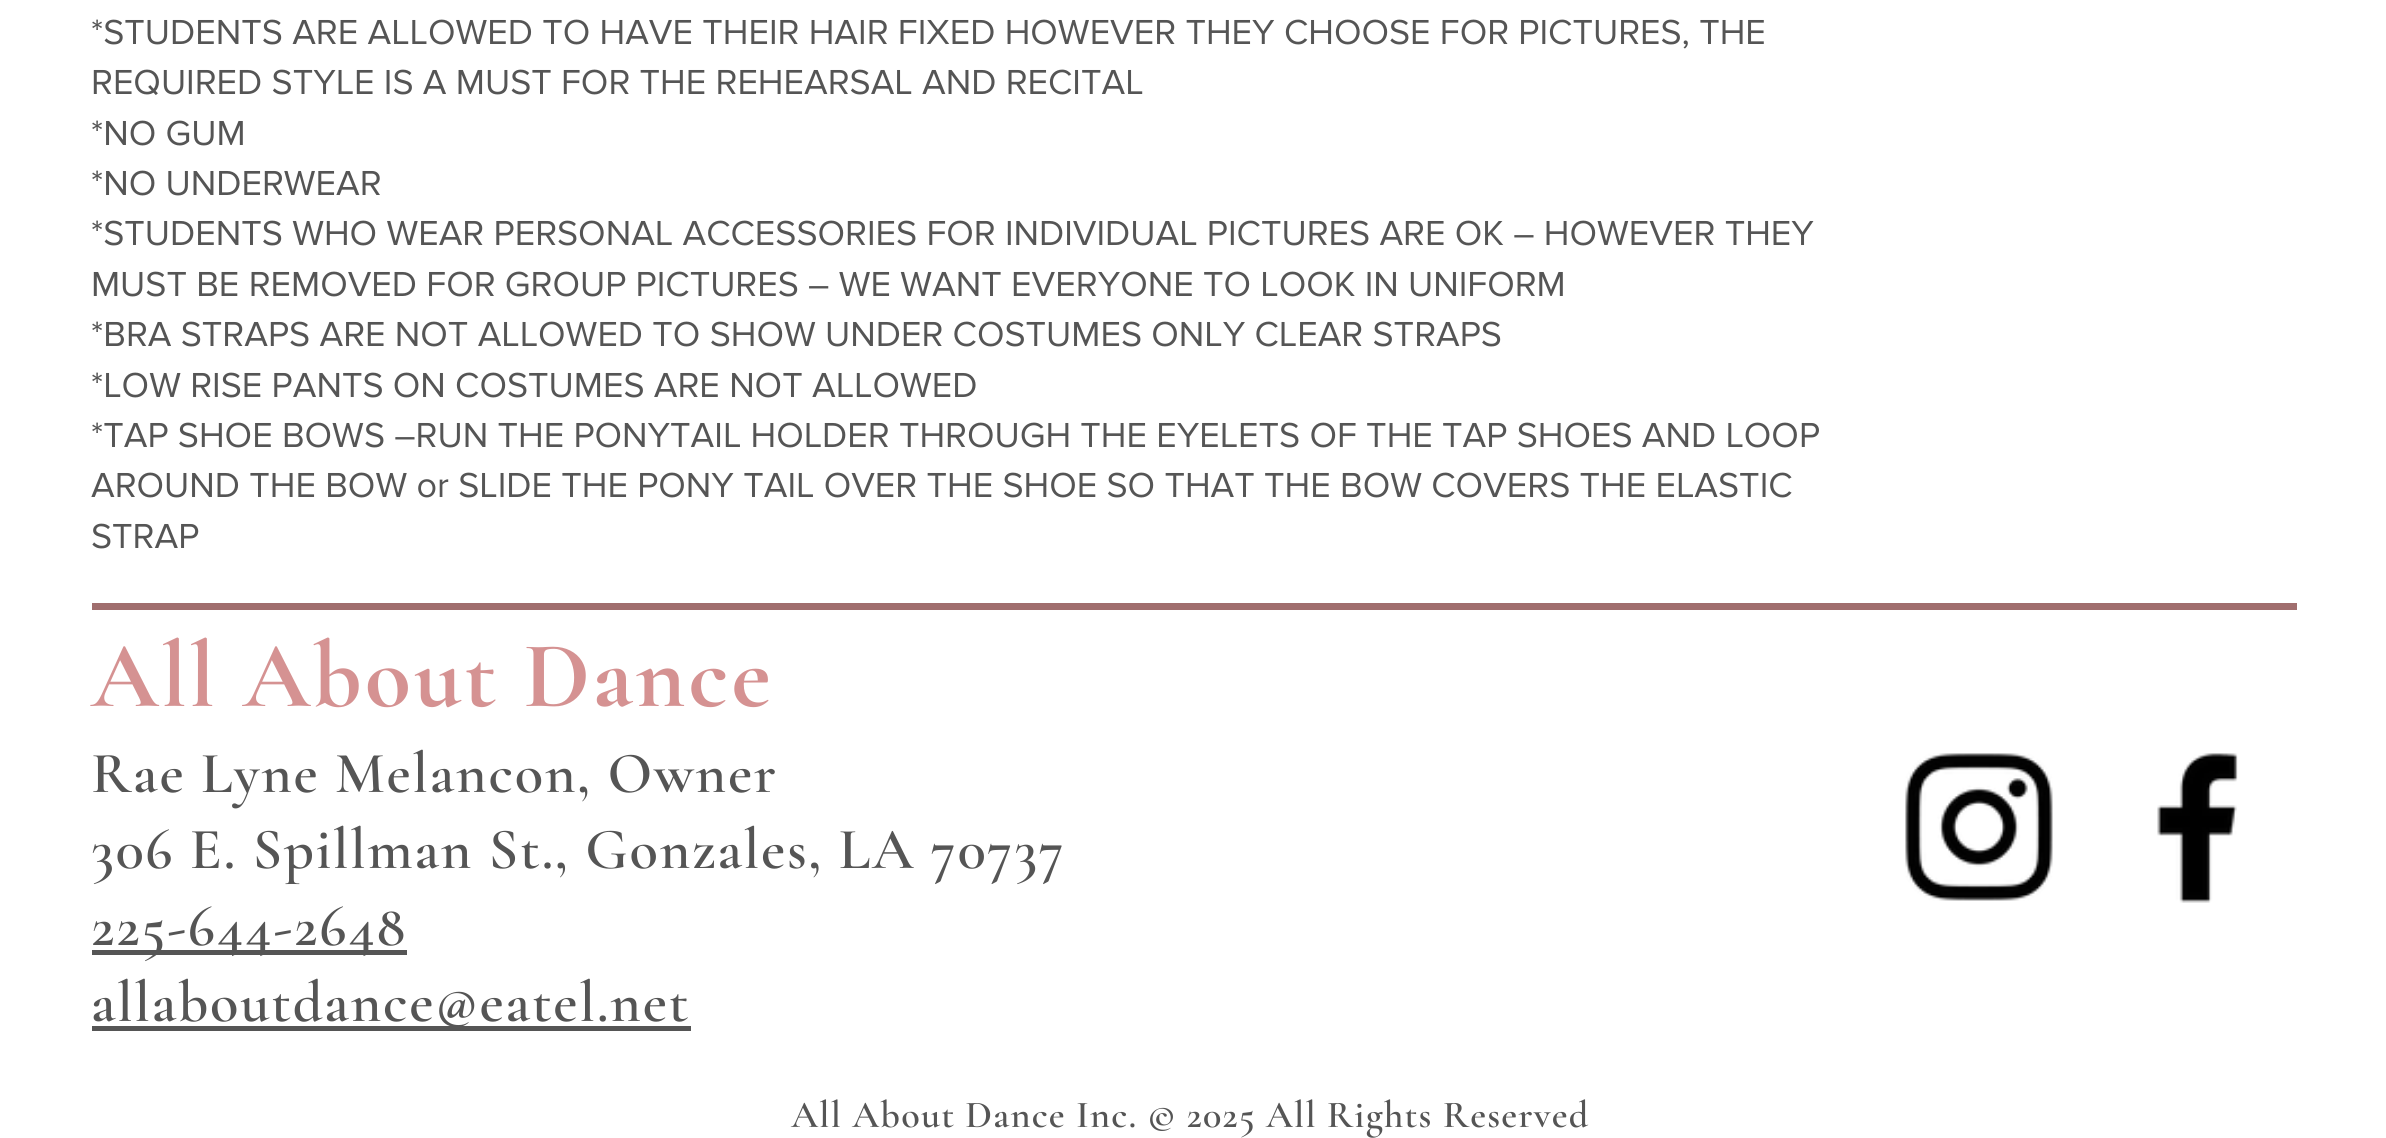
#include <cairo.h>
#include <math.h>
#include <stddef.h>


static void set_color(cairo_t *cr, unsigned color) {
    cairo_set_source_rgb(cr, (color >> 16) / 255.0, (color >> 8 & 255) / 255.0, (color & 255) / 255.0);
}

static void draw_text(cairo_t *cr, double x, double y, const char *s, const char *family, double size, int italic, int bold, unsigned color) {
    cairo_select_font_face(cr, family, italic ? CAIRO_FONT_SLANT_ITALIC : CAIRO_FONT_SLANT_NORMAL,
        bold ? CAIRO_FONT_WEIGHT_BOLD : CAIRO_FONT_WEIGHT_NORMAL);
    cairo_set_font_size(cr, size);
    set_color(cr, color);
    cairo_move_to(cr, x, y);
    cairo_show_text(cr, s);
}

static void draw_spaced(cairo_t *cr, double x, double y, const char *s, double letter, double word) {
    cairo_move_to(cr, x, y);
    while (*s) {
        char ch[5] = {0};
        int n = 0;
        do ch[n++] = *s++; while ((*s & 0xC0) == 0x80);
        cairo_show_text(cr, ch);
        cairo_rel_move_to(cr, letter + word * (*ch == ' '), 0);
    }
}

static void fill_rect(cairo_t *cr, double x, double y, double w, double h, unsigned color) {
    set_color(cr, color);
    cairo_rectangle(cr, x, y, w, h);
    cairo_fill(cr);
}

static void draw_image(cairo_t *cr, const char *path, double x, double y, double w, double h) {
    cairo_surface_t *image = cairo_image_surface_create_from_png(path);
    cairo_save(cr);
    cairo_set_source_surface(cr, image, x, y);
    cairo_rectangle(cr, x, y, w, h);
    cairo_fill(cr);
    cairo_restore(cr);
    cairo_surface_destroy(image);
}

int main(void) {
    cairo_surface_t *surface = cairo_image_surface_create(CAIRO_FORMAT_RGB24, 2386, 1138);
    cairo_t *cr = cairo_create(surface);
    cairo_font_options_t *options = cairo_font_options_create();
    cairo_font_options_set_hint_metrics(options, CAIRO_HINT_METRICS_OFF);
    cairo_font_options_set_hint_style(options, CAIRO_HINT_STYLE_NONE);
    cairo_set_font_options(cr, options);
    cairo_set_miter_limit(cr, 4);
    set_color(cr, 0xFFFFFF);
    cairo_paint(cr);
    draw_text(cr, 91, 44, "*STUDENTS ARE ALLOWED TO HAVE THEIR HAIR FIXED HOWEVER THEY CHOOSE FOR PICTURES, THE", "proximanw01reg", 36, 0, 0, 0x555555);
    draw_text(cr, 91, 94, "REQUIRED STYLE IS A MUST FOR THE REHEARSAL AND RECITAL", "proximanw01reg", 36, 0, 0, 0x555555);
    draw_text(cr, 91, 145, "*NO GUM", "proximanw01reg", 36, 0, 0, 0x555555);
    draw_text(cr, 91, 195, "*NO UNDERWEAR", "proximanw01reg", 36, 0, 0, 0x555555);
    draw_text(cr, 91, 245, "*STUDENTS WHO WEAR PERSONAL ACCESSORIES FOR INDIVIDUAL PICTURES ARE OK – HOWEVER THEY", "proximanw01reg", 36, 0, 0, 0x555555);
    draw_text(cr, 91, 296, "MUST BE REMOVED FOR GROUP PICTURES – WE WANT EVERYONE TO LOOK IN UNIFORM", "proximanw01reg", 36, 0, 0, 0x555555);
    draw_text(cr, 91, 346, "*BRA STRAPS ARE NOT ALLOWED TO SHOW UNDER COSTUMES ONLY CLEAR STRAPS", "proximanw01reg", 36, 0, 0, 0x555555);
    draw_text(cr, 91, 397, "*LOW RISE PANTS ON COSTUMES ARE NOT ALLOWED", "proximanw01reg", 36, 0, 0, 0x555555);
    draw_text(cr, 91, 447, "*TAP SHOE BOWS –RUN THE PONYTAIL HOLDER THROUGH THE EYELETS OF THE TAP SHOES AND LOOP", "proximanw01reg", 36, 0, 0, 0x555555);
    draw_text(cr, 91, 497, "AROUND THE BOW or SLIDE THE PONY TAIL OVER THE SHOE SO THAT THE BOW COVERS THE ELASTIC", "proximanw01reg", 36, 0, 0, 0x555555);
    draw_text(cr, 91, 548, "STRAP", "proximanw01reg", 36, 0, 0, 0x555555);
    fill_rect(cr, 92, 603, 2205, 7, 0xA06E6E);
    cairo_select_font_face(cr, "Cormorant Garamond", CAIRO_FONT_SLANT_NORMAL, CAIRO_FONT_WEIGHT_BOLD);
    cairo_set_font_size(cr, 94.5);
    set_color(cr, 0xD59292);
    draw_spaced(cr, 91, 706, "All About Dance", 2.8, 0);
    cairo_select_font_face(cr, "Cormorant Garamond SemiBold", CAIRO_FONT_SLANT_NORMAL, CAIRO_FONT_WEIGHT_NORMAL);
    cairo_set_font_size(cr, 58.5);
    set_color(cr, 0x555555);
    draw_spaced(cr, 91, 792, "Rae Lyne Melancon, Owner", 1.75, 0);
    draw_spaced(cr, 91, 868, "306 E. Spillman St., Gonzales, LA 70737", 1.75, 0);
    fill_rect(cr, 92, 950, 315, 5, 0x555555);
    draw_spaced(cr, 91, 945, "225-644-2648", 1.75, 0);
    fill_rect(cr, 92, 1026, 599, 5, 0x555555);
    draw_spaced(cr, 91, 1021, "allaboutdance@eatel.net", 1.75, 0);
    draw_image(cr, "assets/img1.png", 1905, 753, 148, 148);
    draw_image(cr, "assets/img2.png", 2157, 753, 81, 150);
    cairo_set_font_size(cr, 38.25);
    draw_spaced(cr, 791, 1127, "All About Dance Inc. © 2025 All Rights Reserved", 1.15, 0);
    cairo_surface_write_to_png(surface, "output.png");
    cairo_font_options_destroy(options);
    cairo_destroy(cr);
    cairo_surface_destroy(surface);
    return 0;
}
